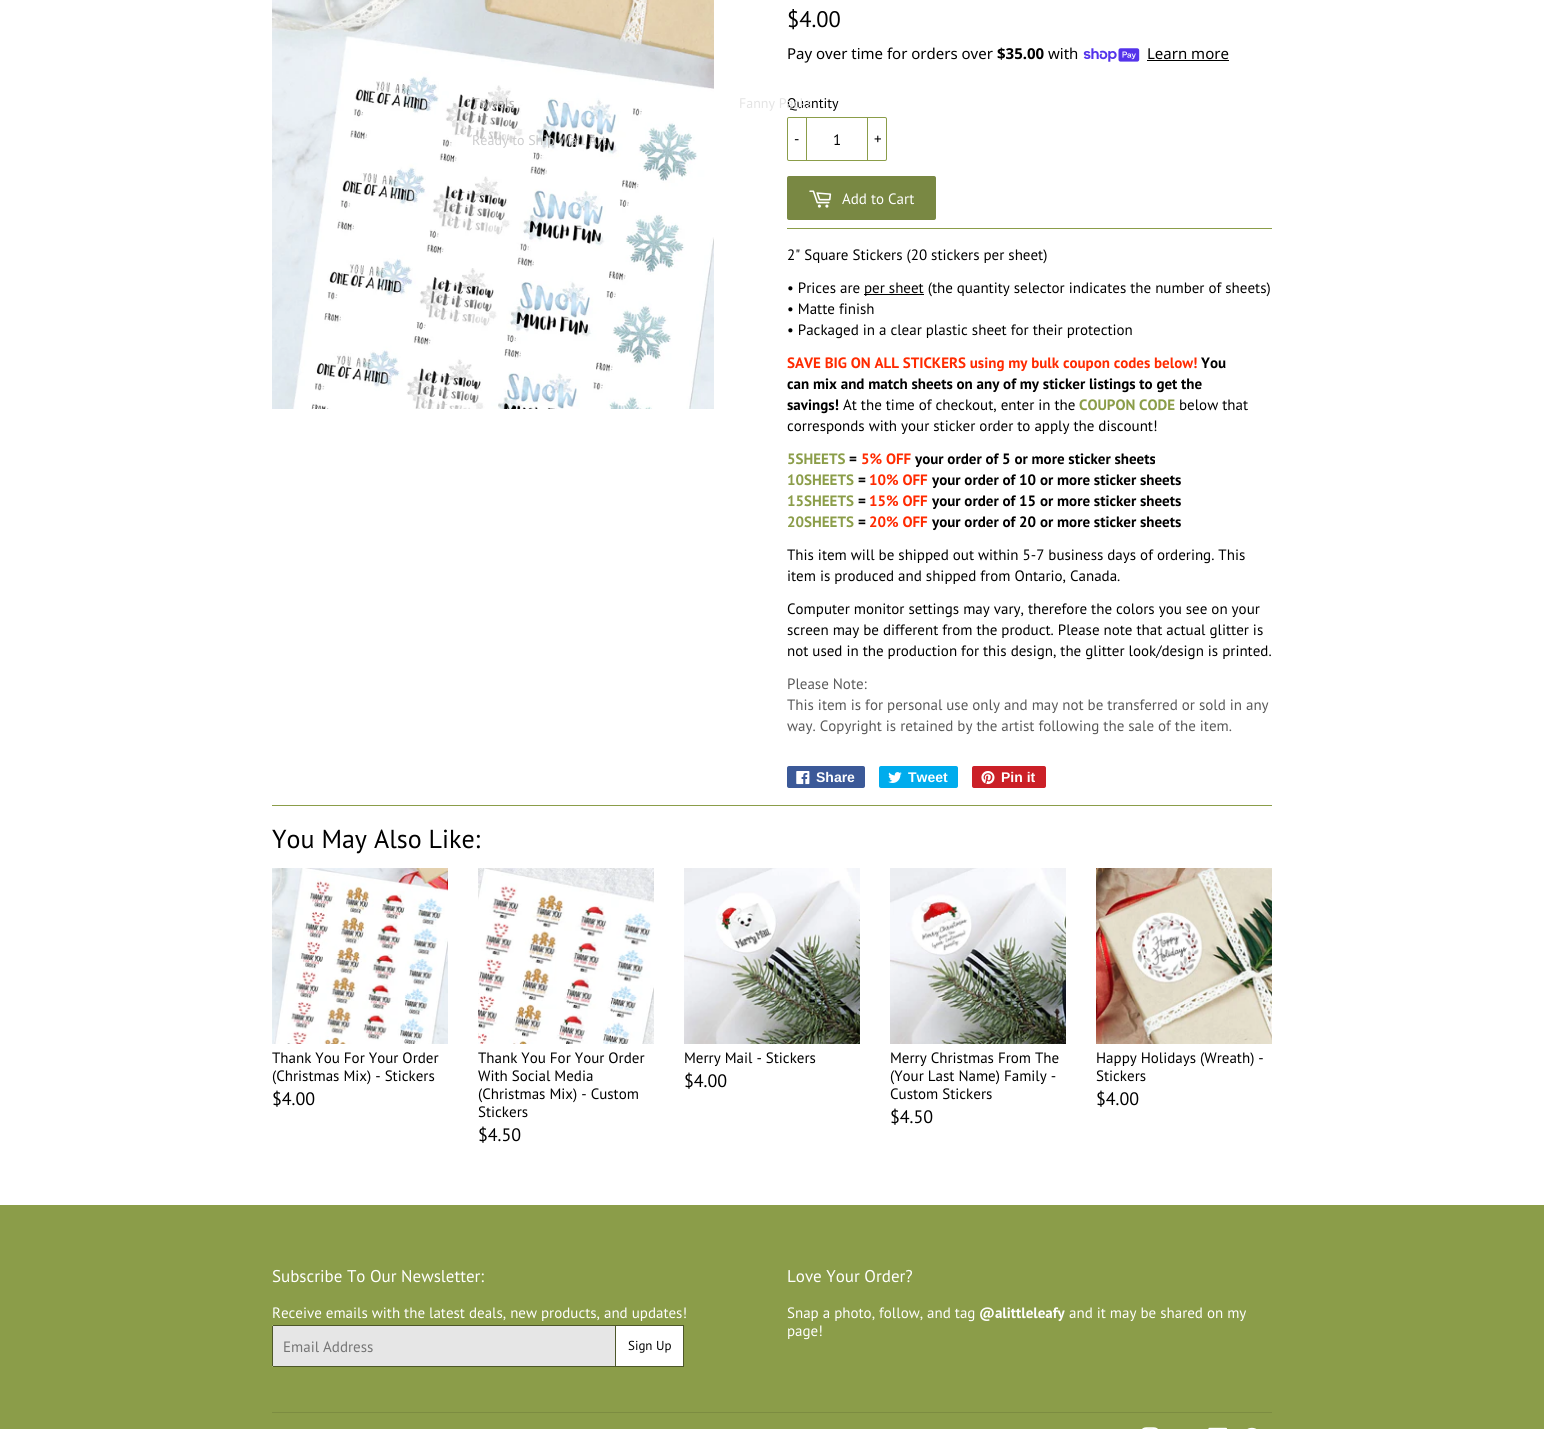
#include <cairo.h>
#include <math.h>
#include <stddef.h>


static void set_color(cairo_t *cr, unsigned color) {
    cairo_set_source_rgb(cr, (color >> 16) / 255.0, (color >> 8 & 255) / 255.0, (color & 255) / 255.0);
}

static void draw_text(cairo_t *cr, double x, double y, const char *s, const char *family, double size, int italic, int bold, unsigned color) {
    cairo_select_font_face(cr, family, italic ? CAIRO_FONT_SLANT_ITALIC : CAIRO_FONT_SLANT_NORMAL,
        bold ? CAIRO_FONT_WEIGHT_BOLD : CAIRO_FONT_WEIGHT_NORMAL);
    cairo_set_font_size(cr, size);
    set_color(cr, color);
    cairo_move_to(cr, x, y);
    cairo_show_text(cr, s);
}

static void fill_rect(cairo_t *cr, double x, double y, double w, double h, unsigned color) {
    set_color(cr, color);
    cairo_rectangle(cr, x, y, w, h);
    cairo_fill(cr);
}

static void rounded_rect(cairo_t *cr, double x, double y, double w, double h, double r) {
    cairo_new_sub_path(cr);
    cairo_arc(cr, x + w - r, y + h - r, r, 0, M_PI / 2);
    cairo_arc(cr, x + r, y + h - r, r, M_PI / 2, M_PI);
    cairo_arc(cr, x + r, y + r, r, M_PI, 1.5 * M_PI);
    cairo_arc(cr, x + w - r, y + r, r, 1.5 * M_PI, 2 * M_PI);
    cairo_close_path(cr);
}

static void draw_image(cairo_t *cr, const char *path, double x, double y, double w, double h) {
    cairo_surface_t *image = cairo_image_surface_create_from_png(path);
    cairo_save(cr);
    cairo_set_source_surface(cr, image, x, y);
    cairo_rectangle(cr, x, y, w, h);
    cairo_fill(cr);
    cairo_restore(cr);
    cairo_surface_destroy(image);
}

int main(void) {
    cairo_surface_t *surface = cairo_image_surface_create(CAIRO_FORMAT_RGB24, 1544, 1429);
    cairo_t *cr = cairo_create(surface);
    cairo_font_options_t *options = cairo_font_options_create();
    cairo_font_options_set_hint_metrics(options, CAIRO_HINT_METRICS_OFF);
    cairo_font_options_set_hint_style(options, CAIRO_HINT_STYLE_NONE);
    cairo_set_font_options(cr, options);
    cairo_set_miter_limit(cr, 4);
    set_color(cr, 0xFFFFFF);
    cairo_paint(cr);
    draw_image(cr, "assets/img1.png", 272, 0, 442, 409);
    draw_text(cr, 787, 27, "$4.00", "PT Sans", 22.5, 0, 0, 0x000000);
    draw_text(cr, 787, 59, "Pay over time for orders over", "Noto Sans", 15, 0, 0, 0x000000);
    draw_text(cr, 997, 59, "$35.00", "Noto Sans", 15, 0, 1, 0x000000);
    draw_text(cr, 1048, 59, "with", "Noto Sans", 15, 0, 0, 0x000000);
    draw_image(cr, "assets/img2.png", 1083, 48, 57, 14);
    draw_text(cr, 1147, 59, "Learn more", "Noto Sans", 15, 0, 0, 0x000000);
    fill_rect(cr, 1147, 60, 82, 1, 0x000000);
    draw_text(cr, 787, 108, "Quantity", "PT Sans", 14, 0, 0, 0x000000);
    rounded_rect(cr, 787.5, 117.5, 99, 43, 1.5);
    set_color(cr, 0x8B9D49);
    cairo_set_line_width(cr, 1);
    cairo_stroke(cr);
    fill_rect(cr, 806, 117, 1, 44, 0x8B9D49);
    draw_text(cr, 794, 144, "-", "PT Sans", 15, 0, 0, 0x000000);
    draw_text(cr, 833, 145, "1", "PT Sans", 15, 0, 0, 0x000000);
    fill_rect(cr, 867, 117, 1, 44, 0x8B9D49);
    draw_text(cr, 874, 144, "+", "PT Sans", 15, 0, 0, 0x000000);
    set_color(cr, 0x798843);
    rounded_rect(cr, 787, 176, 149, 44, 2);
    cairo_fill(cr);
    draw_image(cr, "assets/img3.png", 809, 190, 23, 18);
    draw_text(cr, 842, 204, "Add to Cart", "PT Sans", 15, 0, 0, 0xFFFFFF);
    fill_rect(cr, 787, 228, 485, 1, 0x8B9D49);
    draw_text(cr, 787, 260, "2\" Square Stickers (20 stickers per sheet)", "PT Sans", 15, 0, 0, 0x000000);
    draw_text(cr, 787, 293, "• Prices are", "PT Sans", 15, 0, 0, 0x000000);
    fill_rect(cr, 864, 294, 60, 1, 0x000000);
    draw_text(cr, 864, 293, "per sheet (the quantity selector indicates the number of sheets)", "PT Sans", 15, 0, 0, 0x000000);
    draw_text(cr, 787, 314, "• Matte finish", "PT Sans", 15, 0, 0, 0x000000);
    draw_text(cr, 787, 335, "• Packaged in a clear plastic sheet for their protection", "PT Sans", 15, 0, 0, 0x000000);
    draw_text(cr, 787, 368, "SAVE BIG ON ALL STICKERS using my bulk coupon codes below!", "PT Sans", 15, 0, 1, 0xFF2A00);
    draw_text(cr, 1201, 368, "You", "PT Sans", 15, 0, 1, 0x000000);
    draw_text(cr, 787, 389, "can mix and match sheets on any of my sticker listings to get the", "PT Sans", 15, 0, 1, 0x000000);
    draw_text(cr, 787, 410, "savings!", "PT Sans", 15, 0, 1, 0x000000);
    draw_text(cr, 843, 410, "At the time of checkout, enter in the", "PT Sans", 15, 0, 0, 0x000000);
    draw_text(cr, 1079, 410, "COUPON CODE", "PT Sans", 15, 0, 1, 0x8B9D49);
    draw_text(cr, 1179, 410, "below that", "PT Sans", 15, 0, 0, 0x000000);
    draw_text(cr, 787, 431, "corresponds with your sticker order to apply the discount!", "PT Sans", 15, 0, 0, 0x000000);
    draw_text(cr, 787, 464, "5SHEETS", "PT Sans", 15, 0, 1, 0x8B9D49);
    draw_text(cr, 849, 464, "=", "PT Sans", 15, 0, 1, 0x000000);
    draw_text(cr, 861, 464, "5% OFF", "PT Sans", 15, 0, 1, 0xFF2A00);
    draw_text(cr, 915, 464, "your order of 5 or more sticker sheets", "PT Sans", 15, 0, 1, 0x000000);
    draw_text(cr, 787, 485, "10SHEETS", "PT Sans", 15, 0, 1, 0x8B9D49);
    draw_text(cr, 858, 485, "=", "PT Sans", 15, 0, 1, 0x000000);
    draw_text(cr, 869, 485, "10% OFF", "PT Sans", 15, 0, 1, 0xFF2A00);
    draw_text(cr, 932, 485, "your order of 10 or more sticker sheets", "PT Sans", 15, 0, 1, 0x000000);
    draw_text(cr, 787, 506, "15SHEETS", "PT Sans", 15, 0, 1, 0x8B9D49);
    draw_text(cr, 858, 506, "=", "PT Sans", 15, 0, 1, 0x000000);
    draw_text(cr, 869, 506, "15% OFF", "PT Sans", 15, 0, 1, 0xFF2A00);
    draw_text(cr, 932, 506, "your order of 15 or more sticker sheets", "PT Sans", 15, 0, 1, 0x000000);
    draw_text(cr, 787, 527, "20SHEETS", "PT Sans", 15, 0, 1, 0x8B9D49);
    draw_text(cr, 858, 527, "=", "PT Sans", 15, 0, 1, 0x000000);
    draw_text(cr, 869, 527, "20% OFF", "PT Sans", 15, 0, 1, 0xFF2A00);
    draw_text(cr, 932, 527, "your order of 20 or more sticker sheets", "PT Sans", 15, 0, 1, 0x000000);
    draw_text(cr, 787, 560, "This item will be shipped out within 5-7 business days of ordering. This", "PT Sans", 15, 0, 0, 0x000000);
    draw_text(cr, 787, 581, "item is produced and shipped from Ontario, Canada.", "PT Sans", 15, 0, 0, 0x000000);
    draw_text(cr, 787, 614, "Computer monitor settings may vary, therefore the colors you see on your", "PT Sans", 15, 0, 0, 0x000000);
    draw_text(cr, 787, 635, "screen may be different from the product. Please note that actual glitter is", "PT Sans", 15, 0, 0, 0x000000);
    draw_text(cr, 787, 656, "not used in the production for this design, the glitter look/design is printed.", "PT Sans", 15, 0, 0, 0x000000);
    draw_text(cr, 787, 689, "Please Note:", "PT Sans", 15, 0, 0, 0x595959);
    draw_text(cr, 787, 710, "This item is for personal use only and may not be transferred or sold in any", "PT Sans", 15, 0, 0, 0x595959);
    draw_text(cr, 787, 731, "way. Copyright is retained by the artist following the sale of the item.", "PT Sans", 15, 0, 0, 0x595959);
    set_color(cr, 0x3B5998);
    rounded_rect(cr, 787, 766, 78, 22, 2);
    cairo_fill(cr);
    draw_image(cr, "assets/img4.png", 796, 771, 14, 14);
    draw_text(cr, 816, 782, "Share", "Liberation Sans", 14, 0, 1, 0xFFFFFF);
    set_color(cr, 0x00ACED);
    rounded_rect(cr, 879, 766, 79, 22, 2);
    cairo_fill(cr);
    draw_image(cr, "assets/img5.png", 888, 772, 14, 11);
    draw_text(cr, 908, 782, "Tweet", "Liberation Sans", 14, 0, 1, 0xFFFFFF);
    set_color(cr, 0xCB2027);
    rounded_rect(cr, 972, 766, 74, 22, 2);
    cairo_fill(cr);
    draw_image(cr, "assets/img6.png", 981, 771, 14, 14);
    draw_text(cr, 1001, 782, "Pin it", "Liberation Sans", 14, 0, 1, 0xFFFFFF);
    fill_rect(cr, 272, 805, 1000, 1, 0x8B9D49);
    draw_text(cr, 272, 848, "You May Also Like:", "PT Sans", 26, 0, 0, 0x000000);
    draw_image(cr, "assets/img7.png", 272, 868, 176, 176);
    draw_text(cr, 272, 1063, "Thank You For Your Order", "PT Sans", 15, 0, 0, 0x000000);
    draw_text(cr, 272, 1081, "(Christmas Mix) - Stickers", "PT Sans", 15, 0, 0, 0x000000);
    draw_text(cr, 272, 1105, "$4.00", "PT Sans", 18, 0, 0, 0x000000);
    draw_image(cr, "assets/img8.png", 478, 868, 176, 176);
    draw_text(cr, 478, 1063, "Thank You For Your Order", "PT Sans", 15, 0, 0, 0x000000);
    draw_text(cr, 478, 1081, "With Social Media", "PT Sans", 15, 0, 0, 0x000000);
    draw_text(cr, 478, 1099, "(Christmas Mix) - Custom", "PT Sans", 15, 0, 0, 0x000000);
    draw_text(cr, 478, 1117, "Stickers", "PT Sans", 15, 0, 0, 0x000000);
    draw_text(cr, 478, 1141, "$4.50", "PT Sans", 18, 0, 0, 0x000000);
    draw_image(cr, "assets/img9.png", 684, 868, 176, 176);
    draw_text(cr, 684, 1063, "Merry Mail - Stickers", "PT Sans", 15, 0, 0, 0x000000);
    draw_text(cr, 684, 1087, "$4.00", "PT Sans", 18, 0, 0, 0x000000);
    draw_image(cr, "assets/img10.png", 890, 868, 176, 176);
    draw_text(cr, 890, 1063, "Merry Christmas From The", "PT Sans", 15, 0, 0, 0x000000);
    draw_text(cr, 890, 1081, "(Your Last Name) Family -", "PT Sans", 15, 0, 0, 0x000000);
    draw_text(cr, 890, 1099, "Custom Stickers", "PT Sans", 15, 0, 0, 0x000000);
    draw_text(cr, 890, 1123, "$4.50", "PT Sans", 18, 0, 0, 0x000000);
    draw_image(cr, "assets/img11.png", 1096, 868, 176, 176);
    draw_text(cr, 1096, 1063, "Happy Holidays (Wreath) -", "PT Sans", 15, 0, 0, 0x000000);
    draw_text(cr, 1096, 1081, "Stickers", "PT Sans", 15, 0, 0, 0x000000);
    draw_text(cr, 1096, 1105, "$4.00", "PT Sans", 18, 0, 0, 0x000000);
    draw_text(cr, 634, 35, "A", "PT Sans", 14, 0, 0, 0xE6D7BD);
    draw_text(cr, 472, 108, "Towels", "PT Sans", 14, 0, 0, 0xB7B7B7);
    draw_text(cr, 472, 145, "Ready to Ship Wall Art", "PT Sans", 14, 0, 0, 0xCBCBCC);
    draw_text(cr, 739, 108, "Fanny Packs", "PT Sans", 14, 0, 0, 0xE4E4E4);
    fill_rect(cr, 0, 1205, 1544, 224, 0x8B9D49);
    draw_text(cr, 272, 1282, "Subscribe To Our Newsletter:", "PT Sans", 17, 0, 0, 0xFFFFFF);
    draw_text(cr, 272, 1318, "Receive emails with the latest deals, new products, and updates!", "PT Sans", 15, 0, 0, 0xFFFFFF);
    cairo_new_path(cr);
    cairo_move_to(cr, 274, 1325);
    cairo_line_to(cr, 684, 1325);
    cairo_line_to(cr, 684, 1367);
    cairo_line_to(cr, 274, 1367);
    cairo_curve_to(cr, 273, 1367, 272, 1366, 272, 1365);
    cairo_line_to(cr, 272, 1327);
    cairo_curve_to(cr, 272, 1326, 273, 1325, 274, 1325);
    cairo_close_path(cr);
    cairo_fill(cr);
    cairo_set_source_rgba(cr, 0, 0, 0, 0.1);
    cairo_new_path(cr);
    cairo_move_to(cr, 274, 1325);
    cairo_line_to(cr, 615, 1325);
    cairo_line_to(cr, 615, 1367);
    cairo_line_to(cr, 274, 1367);
    cairo_curve_to(cr, 273, 1367, 272, 1366, 272, 1365);
    cairo_line_to(cr, 272, 1327);
    cairo_curve_to(cr, 272, 1326, 273, 1325, 274, 1325);
    cairo_close_path(cr);
    cairo_fill(cr);
    fill_rect(cr, 273, 1325, 342, 1, 0x4D5729);
    fill_rect(cr, 273, 1366, 342, 1, 0x4D5729);
    fill_rect(cr, 272, 1326, 1, 40, 0x4D5729);
    draw_text(cr, 283, 1352, "Email Address", "PT Sans", 15, 0, 0, 0x757575);
    cairo_rectangle(cr, 615.5, 1325.5, 68, 41);
    set_color(cr, 0x4D5729);
    cairo_stroke(cr);
    draw_text(cr, 628, 1350, "Sign Up", "PT Sans", 13, 0, 0, 0x000000);
    draw_text(cr, 787, 1282, "Love Your Order?", "PT Sans", 17, 0, 0, 0xFFFFFF);
    draw_text(cr, 787, 1318, "Snap a photo, follow, and tag", "PT Sans", 15, 0, 0, 0xFFFFFF);
    draw_text(cr, 979, 1318, "@alittleleafy", "PT Sans", 15, 0, 1, 0xFFFFFF);
    draw_text(cr, 1069, 1318, "and it may be shared on my", "PT Sans", 15, 0, 0, 0xFFFFFF);
    draw_text(cr, 787, 1336, "page!", "PT Sans", 15, 0, 0, 0xFFFFFF);
    fill_rect(cr, 272, 1412, 1000, 1, 0x7C8C41);
    draw_image(cr, "assets/img12.png", 1142, 1427, 16, 2);
    draw_image(cr, "assets/img13.png", 1208, 1427, 20, 2);
    draw_image(cr, "assets/img14.png", 1247, 1427, 10, 2);
    cairo_surface_write_to_png(surface, "output.png");
    cairo_font_options_destroy(options);
    cairo_destroy(cr);
    cairo_surface_destroy(surface);
    return 0;
}
